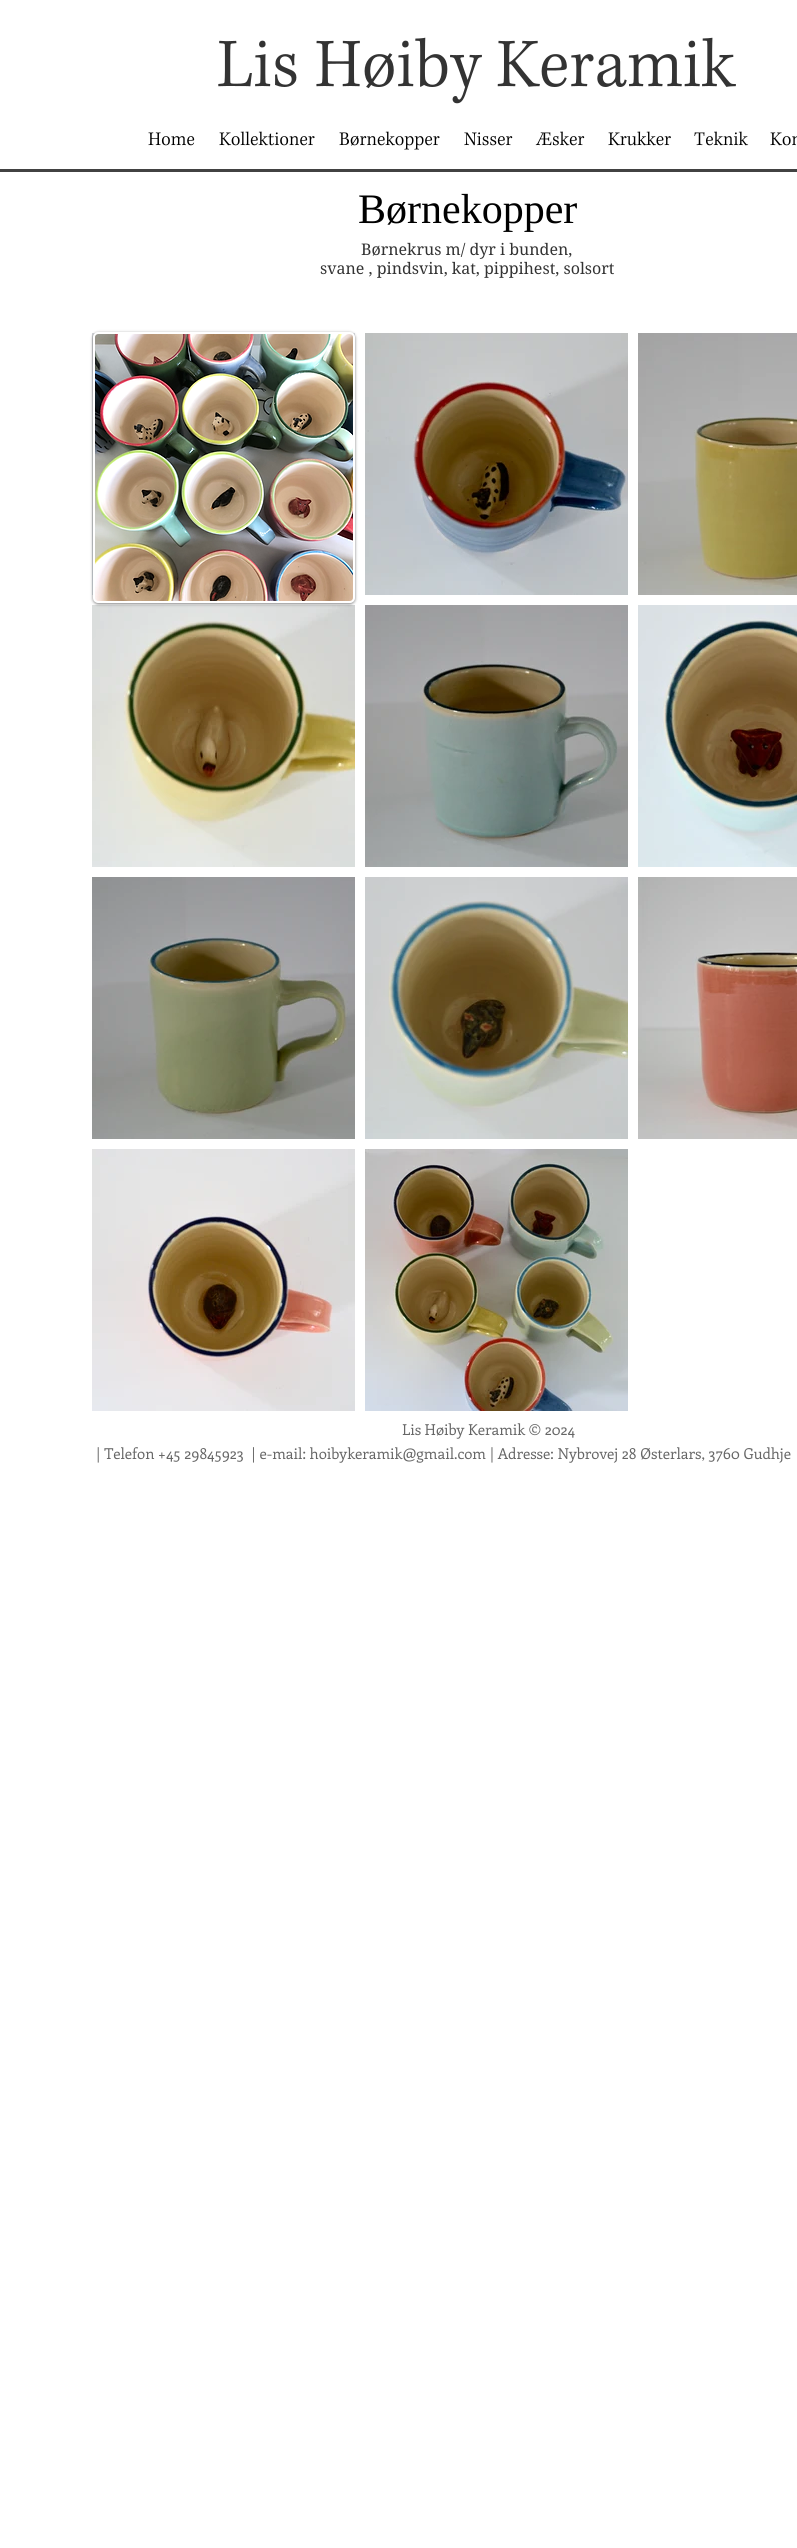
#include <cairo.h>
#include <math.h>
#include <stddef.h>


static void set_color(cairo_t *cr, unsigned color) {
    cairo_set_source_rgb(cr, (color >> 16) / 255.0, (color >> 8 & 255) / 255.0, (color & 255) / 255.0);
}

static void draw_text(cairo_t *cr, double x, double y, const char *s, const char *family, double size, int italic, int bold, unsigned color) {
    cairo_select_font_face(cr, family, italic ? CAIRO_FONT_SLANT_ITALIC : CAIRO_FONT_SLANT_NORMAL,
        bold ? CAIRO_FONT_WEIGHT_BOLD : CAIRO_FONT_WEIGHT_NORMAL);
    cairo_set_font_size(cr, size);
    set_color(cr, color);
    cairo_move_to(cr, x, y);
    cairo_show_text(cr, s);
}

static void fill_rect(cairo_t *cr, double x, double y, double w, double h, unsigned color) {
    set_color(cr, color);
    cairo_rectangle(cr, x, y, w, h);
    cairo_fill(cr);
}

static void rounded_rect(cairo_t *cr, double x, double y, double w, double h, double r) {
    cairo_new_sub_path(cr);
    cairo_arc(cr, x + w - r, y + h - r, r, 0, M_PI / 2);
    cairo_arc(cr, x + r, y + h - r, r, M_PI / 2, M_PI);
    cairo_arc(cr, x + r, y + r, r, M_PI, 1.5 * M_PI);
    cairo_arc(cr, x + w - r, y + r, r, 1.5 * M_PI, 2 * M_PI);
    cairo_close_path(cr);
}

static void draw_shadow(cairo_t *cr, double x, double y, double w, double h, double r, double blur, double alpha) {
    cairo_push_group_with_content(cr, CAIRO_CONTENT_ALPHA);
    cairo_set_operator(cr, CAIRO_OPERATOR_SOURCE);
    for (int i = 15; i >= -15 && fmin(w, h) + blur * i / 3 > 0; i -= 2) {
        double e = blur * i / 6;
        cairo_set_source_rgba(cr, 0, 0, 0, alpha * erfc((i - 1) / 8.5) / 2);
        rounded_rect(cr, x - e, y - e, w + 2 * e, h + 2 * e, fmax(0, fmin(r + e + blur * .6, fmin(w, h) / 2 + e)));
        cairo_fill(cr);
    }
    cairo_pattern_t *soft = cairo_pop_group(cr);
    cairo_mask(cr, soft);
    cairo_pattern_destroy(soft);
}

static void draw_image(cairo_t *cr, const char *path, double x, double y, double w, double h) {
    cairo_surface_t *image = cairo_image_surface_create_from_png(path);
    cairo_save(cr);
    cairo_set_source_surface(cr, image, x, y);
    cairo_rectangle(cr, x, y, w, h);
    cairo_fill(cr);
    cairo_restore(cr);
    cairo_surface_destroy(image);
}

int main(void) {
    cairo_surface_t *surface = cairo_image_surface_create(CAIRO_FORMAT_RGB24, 797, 2548);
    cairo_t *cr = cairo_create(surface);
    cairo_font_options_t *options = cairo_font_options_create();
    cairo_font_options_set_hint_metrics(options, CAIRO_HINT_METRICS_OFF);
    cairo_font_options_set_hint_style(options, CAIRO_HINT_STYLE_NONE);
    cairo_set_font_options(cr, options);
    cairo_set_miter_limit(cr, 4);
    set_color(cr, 0xFFFFFF);
    cairo_paint(cr);
    draw_image(cr, "assets/img1.png", 218, 37, 518, 67);
    draw_image(cr, "assets/img2.png", 148, 132, 47, 14);
    draw_image(cr, "assets/img3.png", 219, 131, 96, 15);
    draw_image(cr, "assets/img4.png", 339, 131, 101, 19);
    draw_image(cr, "assets/img5.png", 464, 132, 49, 14);
    draw_image(cr, "assets/img6.png", 535, 131, 50, 15);
    draw_image(cr, "assets/img7.png", 608, 131, 63, 15);
    draw_image(cr, "assets/img8.png", 694, 131, 55, 15);
    draw_image(cr, "assets/img9.png", 770, 132, 27, 14);
    fill_rect(cr, 0, 169, 797, 3, 0x424242);
    draw_text(cr, 358, 223, "Børnekopper", "Liberation Serif", 42, 0, 0, 0x000000);
    draw_text(cr, 361, 255, "Børnekrus m/ dyr i bunden,", "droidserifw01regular", 16, 0, 0, 0x333333);
    draw_text(cr, 320, 274, "svane , pindsvin, kat, pippihest, solsort", "droidserifw01regular", 16, 0, 0, 0x333333);
    draw_image(cr, "assets/img11.png", 92, 333, 263, 262);
    draw_image(cr, "assets/img14.png", 92, 605, 263, 262);
    set_color(cr, 0x000000);
    draw_shadow(cr, 93, 333, 262, 271, 5, 1.5, 0.5);
    set_color(cr, 0xFFFFFF);
    rounded_rect(cr, 94, 333, 260, 269, 4);
    cairo_fill_preserve(cr);
    cairo_stroke(cr);
    draw_image(cr, "assets/img10.png", 95, 334, 258, 267);
    draw_image(cr, "assets/img12.png", 365, 333, 263, 262);
    draw_image(cr, "assets/img13.png", 638, 333, 159, 262);
    draw_image(cr, "assets/img15.png", 365, 605, 263, 262);
    draw_image(cr, "assets/img16.png", 638, 605, 159, 262);
    draw_image(cr, "assets/img17.png", 92, 877, 263, 262);
    draw_image(cr, "assets/img18.png", 365, 877, 263, 262);
    draw_image(cr, "assets/img19.png", 638, 877, 159, 262);
    draw_image(cr, "assets/img20.png", 92, 1149, 263, 262);
    draw_image(cr, "assets/img21.png", 365, 1149, 263, 262);
    draw_text(cr, 402, 1435, "Lis Høiby Keramik © 2024", "Enriqueta", 15, 0, 0, 0x666666);
    draw_text(cr, 96, 1459, "| Telefon +45 29845923  | e-mail: hoibykeramik@gmail.com | Adresse: Nybrovej 28 Østerlars, 3760 Gudhje", "Enriqueta", 15, 0, 0, 0x666666);
    cairo_surface_write_to_png(surface, "output.png");
    cairo_font_options_destroy(options);
    cairo_destroy(cr);
    cairo_surface_destroy(surface);
    return 0;
}
